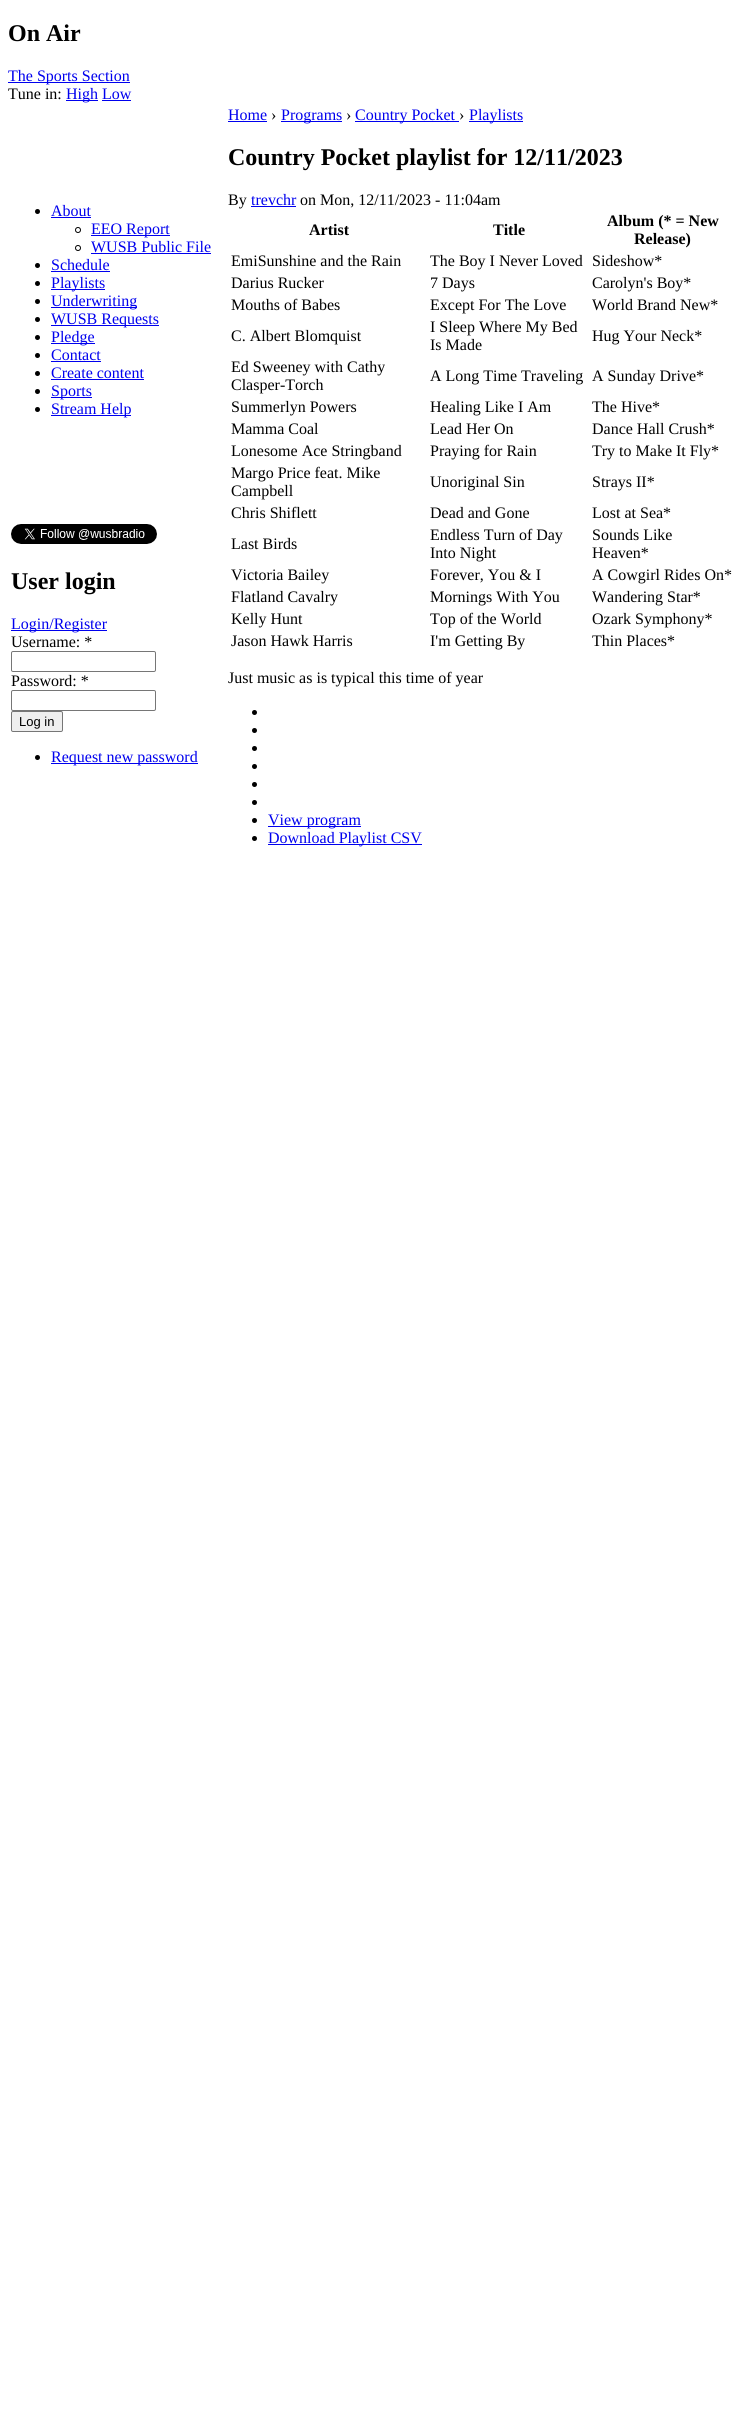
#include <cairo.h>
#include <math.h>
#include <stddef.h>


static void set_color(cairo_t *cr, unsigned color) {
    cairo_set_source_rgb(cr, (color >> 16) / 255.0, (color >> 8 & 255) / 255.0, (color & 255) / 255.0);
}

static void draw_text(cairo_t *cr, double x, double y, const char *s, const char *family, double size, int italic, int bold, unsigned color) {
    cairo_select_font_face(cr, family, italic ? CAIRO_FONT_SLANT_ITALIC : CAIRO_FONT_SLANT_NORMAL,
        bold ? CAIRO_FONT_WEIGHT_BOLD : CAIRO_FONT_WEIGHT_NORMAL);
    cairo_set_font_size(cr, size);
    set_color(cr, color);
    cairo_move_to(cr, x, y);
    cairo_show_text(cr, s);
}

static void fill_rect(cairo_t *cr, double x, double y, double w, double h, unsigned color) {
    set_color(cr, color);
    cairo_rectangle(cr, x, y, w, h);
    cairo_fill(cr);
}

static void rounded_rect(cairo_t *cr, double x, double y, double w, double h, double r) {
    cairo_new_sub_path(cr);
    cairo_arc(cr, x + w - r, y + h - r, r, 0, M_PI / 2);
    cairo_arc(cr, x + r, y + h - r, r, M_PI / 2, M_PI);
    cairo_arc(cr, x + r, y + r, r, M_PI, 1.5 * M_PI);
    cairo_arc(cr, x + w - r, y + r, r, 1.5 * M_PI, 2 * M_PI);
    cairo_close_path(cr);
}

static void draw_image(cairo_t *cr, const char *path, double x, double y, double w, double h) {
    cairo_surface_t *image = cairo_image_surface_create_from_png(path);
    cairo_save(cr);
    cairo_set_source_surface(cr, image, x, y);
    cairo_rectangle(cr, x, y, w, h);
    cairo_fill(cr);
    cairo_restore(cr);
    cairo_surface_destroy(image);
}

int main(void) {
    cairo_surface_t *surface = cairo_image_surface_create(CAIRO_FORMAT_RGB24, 747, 2427);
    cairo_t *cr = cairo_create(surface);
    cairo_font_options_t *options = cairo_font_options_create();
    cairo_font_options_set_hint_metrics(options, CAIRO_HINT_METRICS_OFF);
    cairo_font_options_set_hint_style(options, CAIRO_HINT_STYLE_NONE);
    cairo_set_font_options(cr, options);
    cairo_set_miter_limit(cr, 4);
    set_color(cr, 0xFFFFFF);
    cairo_paint(cr);
    draw_text(cr, 8, 41, "On Air", "Liberation Serif", 24, 0, 1, 0x000000);
    fill_rect(cr, 8, 82, 122, 1, 0x0000EE);
    draw_text(cr, 8, 81, "The Sports Section", "Liberation Serif", 16, 0, 0, 0x0000EE);
    draw_text(cr, 8, 99, "Tune in:", "Liberation Serif", 16, 0, 0, 0x000000);
    fill_rect(cr, 66, 100, 32, 1, 0x0000EE);
    draw_text(cr, 66, 99, "High Low", "Liberation Serif", 16, 0, 0, 0x0000EE);
    fill_rect(cr, 102, 100, 29, 1, 0x0000EE);
    set_color(cr, 0x000000);
    cairo_new_path(cr);
    cairo_arc(cr, 37.5, 211.5, 2.5, 0, 2 * M_PI);
    cairo_fill(cr);
    draw_text(cr, 51, 216, "About", "Liberation Serif", 16, 0, 0, 0x0000EE);
    fill_rect(cr, 51, 217, 40, 1, 0x0000EE);
    cairo_new_path(cr);
    cairo_arc(cr, 78, 230, 2.5, 0, 2 * M_PI);
    set_color(cr, 0x000000);
    cairo_set_line_width(cr, 1);
    cairo_stroke(cr);
    fill_rect(cr, 91, 235, 79, 1, 0x0000EE);
    draw_text(cr, 91, 234, "EEO Report", "Liberation Serif", 16, 0, 0, 0x0000EE);
    cairo_new_path(cr);
    cairo_arc(cr, 78, 248, 2.5, 0, 2 * M_PI);
    set_color(cr, 0x000000);
    cairo_stroke(cr);
    draw_text(cr, 91, 252, "WUSB Public File", "Liberation Serif", 16, 0, 0, 0x0000EE);
    fill_rect(cr, 91, 253, 120, 1, 0x0000EE);
    set_color(cr, 0x000000);
    cairo_new_path(cr);
    cairo_arc(cr, 37.5, 265.5, 2.5, 0, 2 * M_PI);
    cairo_fill(cr);
    draw_text(cr, 51, 270, "Schedule", "Liberation Serif", 16, 0, 0, 0x0000EE);
    fill_rect(cr, 51, 271, 59, 1, 0x0000EE);
    set_color(cr, 0x000000);
    cairo_new_path(cr);
    cairo_arc(cr, 37.5, 283.5, 2.5, 0, 2 * M_PI);
    cairo_fill(cr);
    fill_rect(cr, 51, 289, 54, 1, 0x0000EE);
    draw_text(cr, 51, 288, "Playlists", "Liberation Serif", 16, 0, 0, 0x0000EE);
    set_color(cr, 0x000000);
    cairo_new_path(cr);
    cairo_arc(cr, 37.5, 301.5, 2.5, 0, 2 * M_PI);
    cairo_fill(cr);
    fill_rect(cr, 51, 307, 86, 1, 0x0000EE);
    draw_text(cr, 51, 306, "Underwriting", "Liberation Serif", 16, 0, 0, 0x0000EE);
    set_color(cr, 0x000000);
    cairo_new_path(cr);
    cairo_arc(cr, 37.5, 319.5, 2.5, 0, 2 * M_PI);
    cairo_fill(cr);
    fill_rect(cr, 51, 325, 108, 1, 0x0000EE);
    draw_text(cr, 51, 324, "WUSB Requests", "Liberation Serif", 16, 0, 0, 0x0000EE);
    set_color(cr, 0x000000);
    cairo_new_path(cr);
    cairo_arc(cr, 37.5, 337.5, 2.5, 0, 2 * M_PI);
    cairo_fill(cr);
    fill_rect(cr, 51, 343, 44, 1, 0x0000EE);
    draw_text(cr, 51, 342, "Pledge", "Liberation Serif", 16, 0, 0, 0x0000EE);
    set_color(cr, 0x000000);
    cairo_new_path(cr);
    cairo_arc(cr, 37.5, 355.5, 2.5, 0, 2 * M_PI);
    cairo_fill(cr);
    draw_text(cr, 51, 360, "Contact", "Liberation Serif", 16, 0, 0, 0x0000EE);
    fill_rect(cr, 51, 361, 50, 1, 0x0000EE);
    set_color(cr, 0x000000);
    cairo_new_path(cr);
    cairo_arc(cr, 37.5, 373.5, 2.5, 0, 2 * M_PI);
    cairo_fill(cr);
    draw_text(cr, 51, 378, "Create content", "Liberation Serif", 16, 0, 0, 0x0000EE);
    fill_rect(cr, 51, 379, 93, 1, 0x0000EE);
    set_color(cr, 0x000000);
    cairo_new_path(cr);
    cairo_arc(cr, 37.5, 391.5, 2.5, 0, 2 * M_PI);
    cairo_fill(cr);
    fill_rect(cr, 51, 397, 41, 1, 0x0000EE);
    draw_text(cr, 51, 396, "Sports", "Liberation Serif", 16, 0, 0, 0x0000EE);
    set_color(cr, 0x000000);
    cairo_new_path(cr);
    cairo_arc(cr, 37.5, 409.5, 2.5, 0, 2 * M_PI);
    cairo_fill(cr);
    fill_rect(cr, 51, 415, 80, 1, 0x0000EE);
    draw_text(cr, 51, 414, "Stream Help", "Liberation Serif", 16, 0, 0, 0x0000EE);
    draw_image(cr, "assets/img1.png", 11, 524, 146, 20);
    draw_text(cr, 11, 589, "User login", "Liberation Serif", 24, 0, 1, 0x000000);
    fill_rect(cr, 11, 630, 96, 1, 0x0000EE);
    draw_text(cr, 11, 629, "Login/Register", "Liberation Serif", 16, 0, 0, 0x0000EE);
    draw_text(cr, 11, 647, "Username: *", "Liberation Serif", 16, 0, 0, 0x000000);
    rounded_rect(cr, 11.5, 651.5, 144, 20, 1.5);
    set_color(cr, 0x767676);
    cairo_stroke(cr);
    draw_text(cr, 11, 686, "Password: *", "Liberation Serif", 16, 0, 0, 0x000000);
    rounded_rect(cr, 11.5, 690.5, 144, 20, 1.5);
    set_color(cr, 0x767676);
    cairo_stroke(cr);
    set_color(cr, 0xEFEFEF);
    rounded_rect(cr, 11.5, 711.5, 51, 20, 1.5);
    cairo_fill_preserve(cr);
    set_color(cr, 0x767676);
    cairo_stroke(cr);
    draw_text(cr, 19, 726, "Log in", "Liberation Sans", 13, 0, 0, 0x000000);
    cairo_new_path(cr);
    cairo_arc(cr, 37.5, 757.5, 2.5, 0, 2 * M_PI);
    cairo_fill(cr);
    fill_rect(cr, 51, 763, 147, 1, 0x0000EE);
    draw_text(cr, 51, 762, "Request new password", "Liberation Serif", 16, 0, 0, 0x0000EE);
    draw_text(cr, 228, 120, "Home", "Liberation Serif", 16, 0, 0, 0x0000EE);
    fill_rect(cr, 228, 121, 39, 1, 0x0000EE);
    draw_text(cr, 271, 120, "›", "Liberation Serif", 16, 0, 0, 0x000000);
    fill_rect(cr, 281, 121, 61, 1, 0x0000EE);
    draw_text(cr, 281, 120, "Programs", "Liberation Serif", 16, 0, 0, 0x0000EE);
    draw_text(cr, 346, 120, "›", "Liberation Serif", 16, 0, 0, 0x000000);
    fill_rect(cr, 355, 121, 104, 1, 0x0000EE);
    draw_text(cr, 355, 120, "Country Pocket", "Liberation Serif", 16, 0, 0, 0x0000EE);
    draw_text(cr, 459, 120, "›", "Liberation Serif", 16, 0, 0, 0x000000);
    fill_rect(cr, 469, 121, 54, 1, 0x0000EE);
    draw_text(cr, 469, 120, "Playlists", "Liberation Serif", 16, 0, 0, 0x0000EE);
    draw_text(cr, 228, 165, "Country Pocket playlist for 12/11/2023", "Liberation Serif", 24, 0, 1, 0x000000);
    draw_text(cr, 228, 205, "By", "Liberation Serif", 16, 0, 0, 0x000000);
    fill_rect(cr, 251, 206, 45, 1, 0x0000EE);
    draw_text(cr, 251, 205, "trevchr", "Liberation Serif", 16, 0, 0, 0x0000EE);
    draw_text(cr, 300, 205, "on Mon, 12/11/2023 - 11:04am", "Liberation Serif", 16, 0, 0, 0x000000);
    draw_text(cr, 309, 235, "Artist", "Liberation Serif", 16, 0, 1, 0x000000);
    draw_text(cr, 493, 235, "Title", "Liberation Serif", 16, 0, 1, 0x000000);
    draw_text(cr, 607, 226, "Album (* = New", "Liberation Serif", 16, 0, 1, 0x000000);
    draw_text(cr, 634, 244, "Release)", "Liberation Serif", 16, 0, 1, 0x000000);
    draw_text(cr, 231, 266, "EmiSunshine and the Rain", "Liberation Serif", 16, 0, 0, 0x000000);
    draw_text(cr, 430, 266, "The Boy I Never Loved", "Liberation Serif", 16, 0, 0, 0x000000);
    draw_text(cr, 592, 266, "Sideshow*", "Liberation Serif", 16, 0, 0, 0x000000);
    draw_text(cr, 231, 288, "Darius Rucker", "Liberation Serif", 16, 0, 0, 0x000000);
    draw_text(cr, 430, 288, "7 Days", "Liberation Serif", 16, 0, 0, 0x000000);
    draw_text(cr, 592, 288, "Carolyn's Boy*", "Liberation Serif", 16, 0, 0, 0x000000);
    draw_text(cr, 231, 310, "Mouths of Babes", "Liberation Serif", 16, 0, 0, 0x000000);
    draw_text(cr, 430, 310, "Except For The Love", "Liberation Serif", 16, 0, 0, 0x000000);
    draw_text(cr, 592, 310, "World Brand New*", "Liberation Serif", 16, 0, 0, 0x000000);
    draw_text(cr, 231, 341, "C. Albert Blomquist", "Liberation Serif", 16, 0, 0, 0x000000);
    draw_text(cr, 430, 332, "I Sleep Where My Bed", "Liberation Serif", 16, 0, 0, 0x000000);
    draw_text(cr, 430, 350, "Is Made", "Liberation Serif", 16, 0, 0, 0x000000);
    draw_text(cr, 592, 341, "Hug Your Neck*", "Liberation Serif", 16, 0, 0, 0x000000);
    draw_text(cr, 231, 372, "Ed Sweeney with Cathy", "Liberation Serif", 16, 0, 0, 0x000000);
    draw_text(cr, 231, 390, "Clasper-Torch", "Liberation Serif", 16, 0, 0, 0x000000);
    draw_text(cr, 430, 381, "A Long Time Traveling", "Liberation Serif", 16, 0, 0, 0x000000);
    draw_text(cr, 592, 381, "A Sunday Drive*", "Liberation Serif", 16, 0, 0, 0x000000);
    draw_text(cr, 231, 412, "Summerlyn Powers", "Liberation Serif", 16, 0, 0, 0x000000);
    draw_text(cr, 430, 412, "Healing Like I Am", "Liberation Serif", 16, 0, 0, 0x000000);
    draw_text(cr, 592, 412, "The Hive*", "Liberation Serif", 16, 0, 0, 0x000000);
    draw_text(cr, 231, 434, "Mamma Coal", "Liberation Serif", 16, 0, 0, 0x000000);
    draw_text(cr, 430, 434, "Lead Her On", "Liberation Serif", 16, 0, 0, 0x000000);
    draw_text(cr, 592, 434, "Dance Hall Crush*", "Liberation Serif", 16, 0, 0, 0x000000);
    draw_text(cr, 231, 456, "Lonesome Ace Stringband", "Liberation Serif", 16, 0, 0, 0x000000);
    draw_text(cr, 430, 456, "Praying for Rain", "Liberation Serif", 16, 0, 0, 0x000000);
    draw_text(cr, 592, 456, "Try to Make It Fly*", "Liberation Serif", 16, 0, 0, 0x000000);
    draw_text(cr, 231, 478, "Margo Price feat. Mike", "Liberation Serif", 16, 0, 0, 0x000000);
    draw_text(cr, 231, 496, "Campbell", "Liberation Serif", 16, 0, 0, 0x000000);
    draw_text(cr, 430, 487, "Unoriginal Sin", "Liberation Serif", 16, 0, 0, 0x000000);
    draw_text(cr, 592, 487, "Strays II*", "Liberation Serif", 16, 0, 0, 0x000000);
    draw_text(cr, 231, 518, "Chris Shiflett", "Liberation Serif", 16, 0, 0, 0x000000);
    draw_text(cr, 430, 518, "Dead and Gone", "Liberation Serif", 16, 0, 0, 0x000000);
    draw_text(cr, 592, 518, "Lost at Sea*", "Liberation Serif", 16, 0, 0, 0x000000);
    draw_text(cr, 231, 549, "Last Birds", "Liberation Serif", 16, 0, 0, 0x000000);
    draw_text(cr, 430, 540, "Endless Turn of Day", "Liberation Serif", 16, 0, 0, 0x000000);
    draw_text(cr, 430, 558, "Into Night", "Liberation Serif", 16, 0, 0, 0x000000);
    draw_text(cr, 592, 540, "Sounds Like", "Liberation Serif", 16, 0, 0, 0x000000);
    draw_text(cr, 592, 558, "Heaven*", "Liberation Serif", 16, 0, 0, 0x000000);
    draw_text(cr, 231, 580, "Victoria Bailey", "Liberation Serif", 16, 0, 0, 0x000000);
    draw_text(cr, 430, 580, "Forever, You & I", "Liberation Serif", 16, 0, 0, 0x000000);
    draw_text(cr, 592, 580, "A Cowgirl Rides On*", "Liberation Serif", 16, 0, 0, 0x000000);
    draw_text(cr, 231, 602, "Flatland Cavalry", "Liberation Serif", 16, 0, 0, 0x000000);
    draw_text(cr, 430, 602, "Mornings With You", "Liberation Serif", 16, 0, 0, 0x000000);
    draw_text(cr, 592, 602, "Wandering Star*", "Liberation Serif", 16, 0, 0, 0x000000);
    draw_text(cr, 231, 624, "Kelly Hunt", "Liberation Serif", 16, 0, 0, 0x000000);
    draw_text(cr, 430, 624, "Top of the World", "Liberation Serif", 16, 0, 0, 0x000000);
    draw_text(cr, 592, 624, "Ozark Symphony*", "Liberation Serif", 16, 0, 0, 0x000000);
    draw_text(cr, 231, 646, "Jason Hawk Harris", "Liberation Serif", 16, 0, 0, 0x000000);
    draw_text(cr, 430, 646, "I'm Getting By", "Liberation Serif", 16, 0, 0, 0x000000);
    draw_text(cr, 592, 646, "Thin Places*", "Liberation Serif", 16, 0, 0, 0x000000);
    draw_text(cr, 228, 683, "Just music as is typical this time of year", "Liberation Serif", 16, 0, 0, 0x000000);
    cairo_new_path(cr);
    cairo_arc(cr, 254.5, 712.5, 2.5, 0, 2 * M_PI);
    cairo_fill(cr);
    cairo_arc(cr, 254.5, 730.5, 2.5, 0, 2 * M_PI);
    cairo_fill(cr);
    cairo_arc(cr, 254.5, 748.5, 2.5, 0, 2 * M_PI);
    cairo_fill(cr);
    cairo_arc(cr, 254.5, 766.5, 2.5, 0, 2 * M_PI);
    cairo_fill(cr);
    cairo_arc(cr, 254.5, 784.5, 2.5, 0, 2 * M_PI);
    cairo_fill(cr);
    cairo_arc(cr, 254.5, 802.5, 2.5, 0, 2 * M_PI);
    cairo_fill(cr);
    cairo_arc(cr, 254.5, 820.5, 2.5, 0, 2 * M_PI);
    cairo_fill(cr);
    fill_rect(cr, 268, 826, 93, 1, 0x0000EE);
    draw_text(cr, 268, 825, "View program", "Liberation Serif", 16, 0, 0, 0x0000EE);
    set_color(cr, 0x000000);
    cairo_new_path(cr);
    cairo_arc(cr, 254.5, 838.5, 2.5, 0, 2 * M_PI);
    cairo_fill(cr);
    fill_rect(cr, 268, 844, 154, 1, 0x0000EE);
    draw_text(cr, 268, 843, "Download Playlist CSV", "Liberation Serif", 16, 0, 0, 0x0000EE);
    cairo_surface_write_to_png(surface, "output.png");
    cairo_font_options_destroy(options);
    cairo_destroy(cr);
    cairo_surface_destroy(surface);
    return 0;
}
